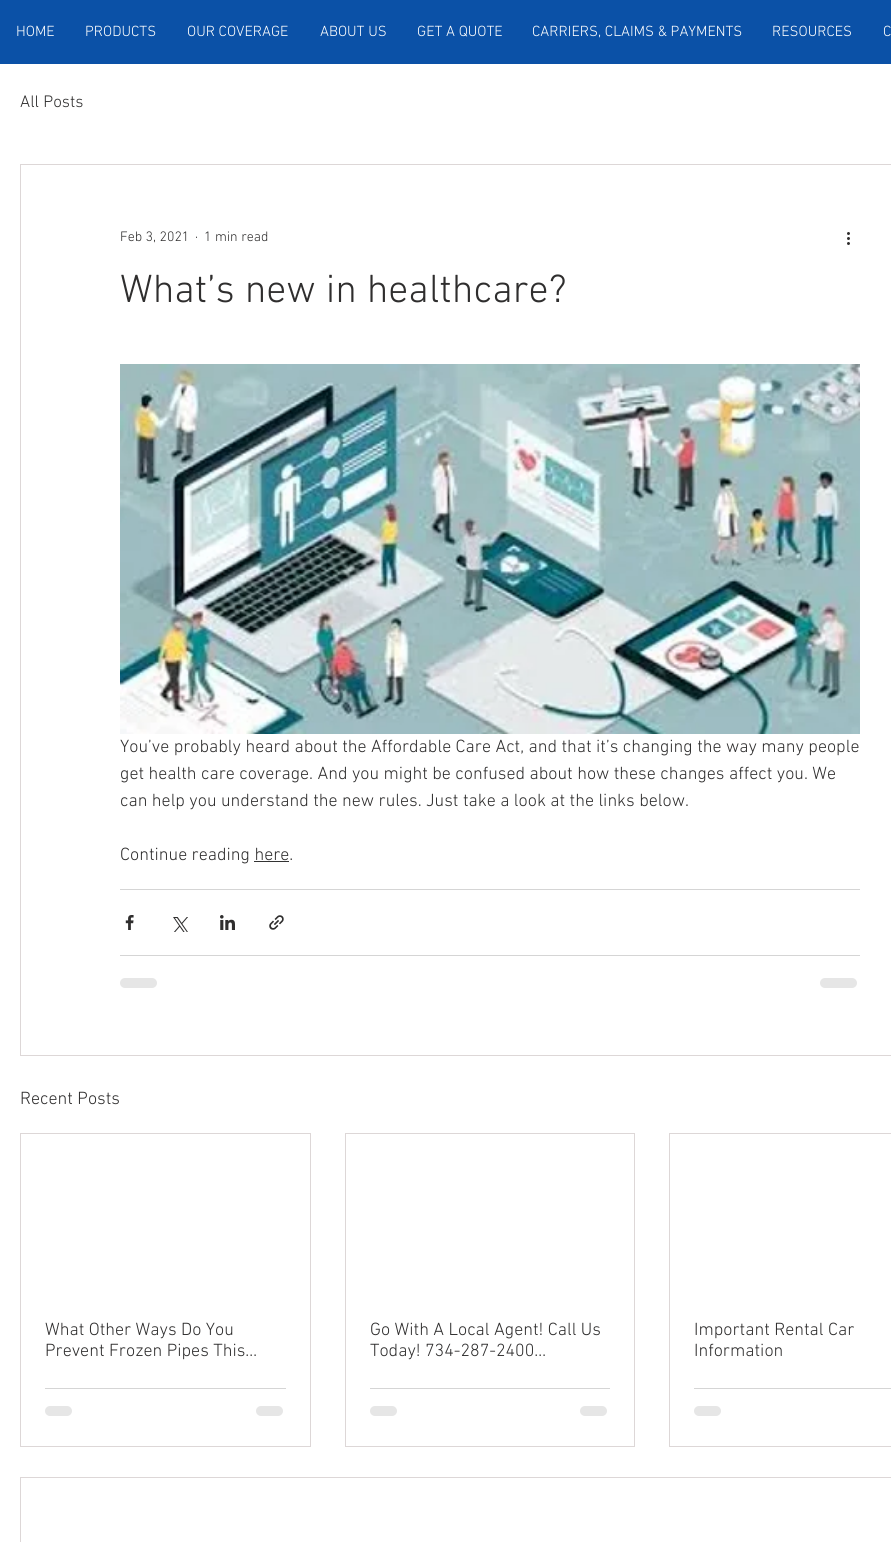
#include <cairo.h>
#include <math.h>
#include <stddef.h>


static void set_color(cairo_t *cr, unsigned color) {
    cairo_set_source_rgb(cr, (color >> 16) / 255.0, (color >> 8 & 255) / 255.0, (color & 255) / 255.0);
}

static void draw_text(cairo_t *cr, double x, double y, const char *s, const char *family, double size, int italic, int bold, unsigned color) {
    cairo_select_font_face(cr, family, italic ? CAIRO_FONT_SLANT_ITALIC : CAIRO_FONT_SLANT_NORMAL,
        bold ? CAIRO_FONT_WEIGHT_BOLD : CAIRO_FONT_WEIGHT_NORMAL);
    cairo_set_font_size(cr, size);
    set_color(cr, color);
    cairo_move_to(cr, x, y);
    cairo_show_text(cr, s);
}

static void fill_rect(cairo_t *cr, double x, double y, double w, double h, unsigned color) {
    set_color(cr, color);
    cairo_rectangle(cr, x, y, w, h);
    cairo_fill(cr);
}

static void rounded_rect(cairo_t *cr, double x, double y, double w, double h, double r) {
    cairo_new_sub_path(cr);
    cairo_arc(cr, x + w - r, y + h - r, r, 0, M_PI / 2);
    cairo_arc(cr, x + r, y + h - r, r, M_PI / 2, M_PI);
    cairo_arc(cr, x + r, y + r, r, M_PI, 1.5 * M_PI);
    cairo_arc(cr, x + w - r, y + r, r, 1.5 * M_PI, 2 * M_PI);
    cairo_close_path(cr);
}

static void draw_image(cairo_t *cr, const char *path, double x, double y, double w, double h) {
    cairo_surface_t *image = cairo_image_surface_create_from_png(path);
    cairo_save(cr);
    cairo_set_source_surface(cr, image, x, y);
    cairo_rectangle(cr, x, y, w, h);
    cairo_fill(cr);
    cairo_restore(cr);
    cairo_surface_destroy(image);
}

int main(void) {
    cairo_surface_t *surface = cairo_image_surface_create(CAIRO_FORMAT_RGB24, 891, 1542);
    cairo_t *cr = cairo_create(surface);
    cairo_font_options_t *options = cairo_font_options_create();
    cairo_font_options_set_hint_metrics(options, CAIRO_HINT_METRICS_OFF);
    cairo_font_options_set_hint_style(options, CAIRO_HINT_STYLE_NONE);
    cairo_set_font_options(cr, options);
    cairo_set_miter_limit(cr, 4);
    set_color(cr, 0xFFFFFF);
    cairo_paint(cr);
    fill_rect(cr, 0, 0, 891, 64, 0x0B51A7);
    draw_text(cr, 16, 36, "HOME", "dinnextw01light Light", 15, 0, 0, 0xFFFFFF);
    draw_text(cr, 85, 36, "PRODUCTS", "dinnextw01light Light", 15, 0, 0, 0xFFFFFF);
    draw_text(cr, 187, 36, "OUR COVERAGE", "dinnextw01light Light", 15, 0, 0, 0xFFFFFF);
    draw_text(cr, 320, 36, "ABOUT US", "dinnextw01light Light", 15, 0, 0, 0xFFFFFF);
    draw_text(cr, 417, 36, "GET A QUOTE", "dinnextw01light Light", 15, 0, 0, 0xFFFFFF);
    draw_text(cr, 532, 36, "CARRIERS, CLAIMS & PAYMENTS", "dinnextw01light Light", 15, 0, 0, 0xFFFFFF);
    draw_text(cr, 772, 36, "RESOURCES", "dinnextw01light Light", 15, 0, 0, 0xFFFFFF);
    draw_text(cr, 883, 36, "C", "dinnextw01light Light", 15, 0, 0, 0xFFFFFF);
    draw_text(cr, 20, 107, "All Posts", "dinnextw01light Light", 17, 0, 0, 0x2F2E2E);
    cairo_rectangle(cr, 20.5, 164.5, 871, 891);
    set_color(cr, 0xDDD7D7);
    cairo_set_line_width(cr, 1);
    cairo_stroke(cr);
    draw_text(cr, 120, 241, "Feb 3, 2021", "dinnextw01light Light", 14, 0, 0, 0x2F2E2E);
    draw_text(cr, 195, 241, "·", "dinnextw01light Light", 14, 0, 0, 0x2F2E2E);
    draw_text(cr, 204, 241, "1 min read", "dinnextw01light Light", 14, 0, 0, 0x2F2E2E);
    draw_image(cr, "assets/img1.png", 847, 232, 3, 13);
    draw_text(cr, 120, 302, "What’s new in healthcare?", "dinnextw01light Light", 40, 0, 0, 0x2F2E2E);
    draw_image(cr, "assets/img2.png", 120, 364, 740, 370);
    draw_text(cr, 120, 752, "You’ve probably heard about the Affordable Care Act, and that it’s changing the way many people", "dinnextw01light Light", 18, 0, 0, 0x2F2E2E);
    draw_text(cr, 120, 779, "get health care coverage. And you might be confused about how these changes affect you. We", "dinnextw01light Light", 18, 0, 0, 0x2F2E2E);
    draw_text(cr, 120, 806, "can help you understand the new rules. Just take a look at the links below.", "dinnextw01light Light", 18, 0, 0, 0x2F2E2E);
    draw_text(cr, 120, 860, "Continue reading here.", "dinnextw01light Light", 18, 0, 0, 0x2F2E2E);
    fill_rect(cr, 254, 861, 35, 1, 0x333333);
    fill_rect(cr, 120, 889, 740, 1, 0xD5D5D5);
    draw_image(cr, "assets/img3.png", 125, 915, 9, 15);
    draw_image(cr, "assets/img4.png", 173, 917, 15, 15);
    draw_image(cr, "assets/img5.png", 220, 915, 15, 15);
    draw_image(cr, "assets/img6.png", 269, 915, 15, 15);
    fill_rect(cr, 120, 955, 740, 1, 0xD5D5D5);
    set_color(cr, 0xE6E6E6);
    rounded_rect(cr, 120, 978, 37, 10, 5);
    cairo_fill(cr);
    rounded_rect(cr, 820, 978, 37, 10, 5);
    cairo_fill(cr);
    draw_text(cr, 20, 1104, "Recent Posts", "dinnextw01light Light", 18, 0, 0, 0x2F2E2E);
    cairo_rectangle(cr, 20.5, 1133.5, 290, 313);
    set_color(cr, 0xDDD7D7);
    cairo_stroke(cr);
    draw_text(cr, 45, 1335, "What Other Ways Do You", "dinnextw01light Light", 18, 0, 0, 0x2F2E2E);
    draw_text(cr, 45, 1356, "Prevent Frozen Pipes This…", "dinnextw01light Light", 18, 0, 0, 0x2F2E2E);
    fill_rect(cr, 45, 1388, 241, 1, 0xD5D5D5);
    set_color(cr, 0xE6E6E6);
    rounded_rect(cr, 45, 1406, 27, 10, 5);
    cairo_fill(cr);
    rounded_rect(cr, 256, 1406, 27, 10, 5);
    cairo_fill(cr);
    cairo_rectangle(cr, 345.5, 1133.5, 289, 313);
    set_color(cr, 0xDDD7D7);
    cairo_stroke(cr);
    draw_text(cr, 370, 1335, "Go With A Local Agent! Call Us", "dinnextw01light Light", 18, 0, 0, 0x2F2E2E);
    draw_text(cr, 370, 1356, "Today! 734-287-2400…", "dinnextw01light Light", 18, 0, 0, 0x2F2E2E);
    fill_rect(cr, 370, 1388, 240, 1, 0xD5D5D5);
    set_color(cr, 0xE6E6E6);
    rounded_rect(cr, 370, 1406, 27, 10, 5);
    cairo_fill(cr);
    rounded_rect(cr, 580, 1406, 27, 10, 5);
    cairo_fill(cr);
    cairo_rectangle(cr, 669.5, 1133.5, 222, 313);
    set_color(cr, 0xDDD7D7);
    cairo_stroke(cr);
    draw_text(cr, 694, 1335, "Important Rental Car", "dinnextw01light Light", 18, 0, 0, 0x2F2E2E);
    draw_text(cr, 694, 1356, "Information", "dinnextw01light Light", 18, 0, 0, 0x2F2E2E);
    fill_rect(cr, 694, 1388, 197, 1, 0xD5D5D5);
    set_color(cr, 0xE6E6E6);
    rounded_rect(cr, 694, 1406, 27, 10, 5);
    cairo_fill(cr);
    cairo_rectangle(cr, 20.5, 1477.5, 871, 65);
    set_color(cr, 0xDDD7D7);
    cairo_stroke(cr);
    cairo_surface_write_to_png(surface, "output.png");
    cairo_font_options_destroy(options);
    cairo_destroy(cr);
    cairo_surface_destroy(surface);
    return 0;
}
